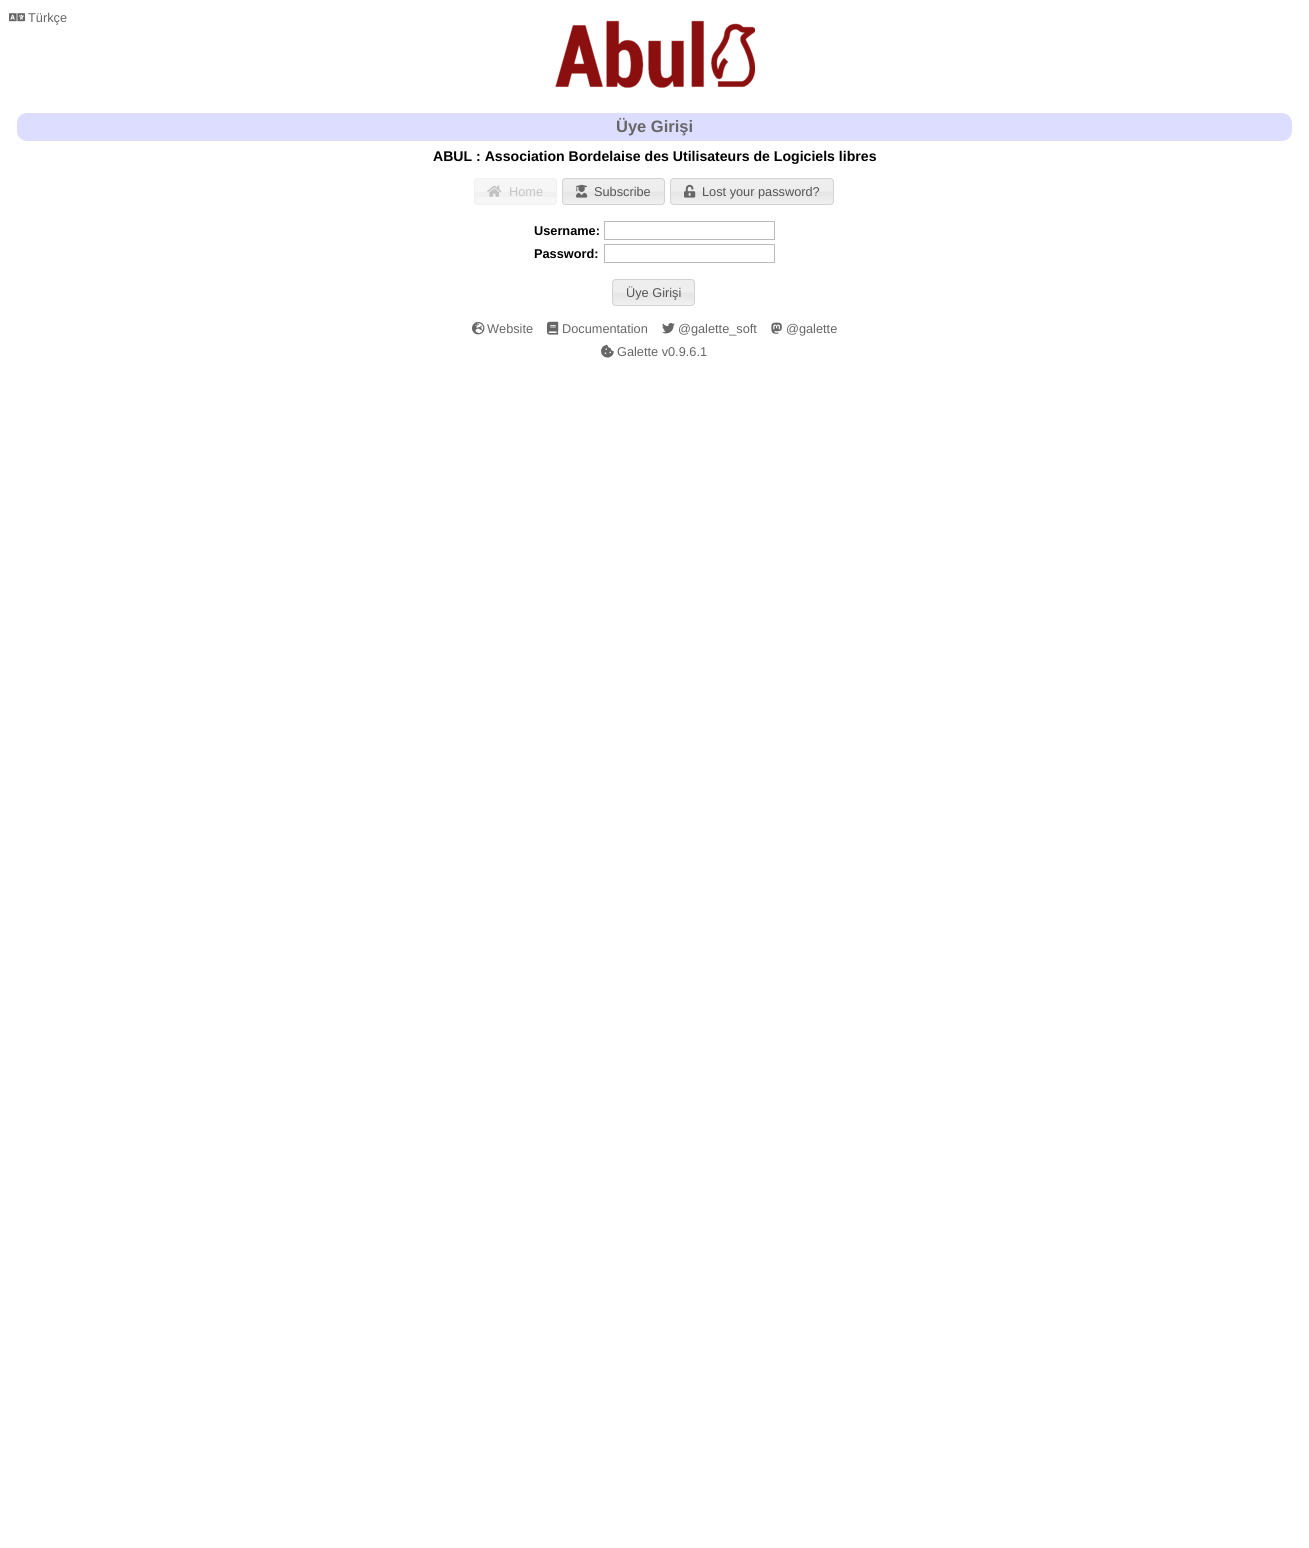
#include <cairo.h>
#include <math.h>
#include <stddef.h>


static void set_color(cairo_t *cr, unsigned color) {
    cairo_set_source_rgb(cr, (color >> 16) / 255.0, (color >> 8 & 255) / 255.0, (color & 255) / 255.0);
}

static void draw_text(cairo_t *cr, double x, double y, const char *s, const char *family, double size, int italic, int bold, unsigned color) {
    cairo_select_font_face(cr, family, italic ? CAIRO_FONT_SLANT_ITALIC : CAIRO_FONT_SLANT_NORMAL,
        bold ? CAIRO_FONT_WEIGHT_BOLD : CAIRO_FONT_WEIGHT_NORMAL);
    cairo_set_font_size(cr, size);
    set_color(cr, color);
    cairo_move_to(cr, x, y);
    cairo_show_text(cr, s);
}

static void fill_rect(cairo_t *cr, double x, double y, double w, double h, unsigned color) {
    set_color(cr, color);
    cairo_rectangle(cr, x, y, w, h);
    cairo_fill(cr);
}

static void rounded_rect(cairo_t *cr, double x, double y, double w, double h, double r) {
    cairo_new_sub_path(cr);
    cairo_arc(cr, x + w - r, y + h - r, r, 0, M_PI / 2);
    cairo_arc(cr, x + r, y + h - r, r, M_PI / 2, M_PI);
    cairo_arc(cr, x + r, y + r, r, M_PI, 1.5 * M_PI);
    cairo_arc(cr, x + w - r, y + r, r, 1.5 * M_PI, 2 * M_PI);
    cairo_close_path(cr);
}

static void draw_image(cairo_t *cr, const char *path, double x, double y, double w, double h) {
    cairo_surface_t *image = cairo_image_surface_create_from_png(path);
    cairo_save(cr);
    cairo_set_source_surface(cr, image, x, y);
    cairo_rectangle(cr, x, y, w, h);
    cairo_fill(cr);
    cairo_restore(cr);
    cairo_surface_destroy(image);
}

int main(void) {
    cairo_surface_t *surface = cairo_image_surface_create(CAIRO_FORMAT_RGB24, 1309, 1548);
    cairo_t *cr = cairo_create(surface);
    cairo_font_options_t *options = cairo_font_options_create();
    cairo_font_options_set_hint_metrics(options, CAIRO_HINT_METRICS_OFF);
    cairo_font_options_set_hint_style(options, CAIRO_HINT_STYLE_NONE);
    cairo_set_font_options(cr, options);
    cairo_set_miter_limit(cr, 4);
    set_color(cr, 0xFFFFFF);
    cairo_paint(cr);
    draw_image(cr, "assets/img1.png", 9, 13, 16, 9);
    draw_text(cr, 28, 22, "Türkçe", "Liberation Sans", 12.75, 0, 0, 0x666666);
    draw_image(cr, "assets/img2.png", 555, 20, 200, 68);
    set_color(cr, 0xDDDDFF);
    rounded_rect(cr, 17, 113, 1275, 28, 10);
    cairo_fill(cr);
    draw_text(cr, 616, 132, "Üye Girişi", "Liberation Sans", 16.5, 0, 1, 0x666666);
    draw_text(cr, 433, 161, "ABUL : Association Bordelaise des Utilisateurs de Logiciels libres", "Liberation Sans", 14.1, 0, 1, 0x000000);
    set_color(cr, 0xF6F6F6);
    rounded_rect(cr, 474, 178, 83, 27, 4);
    cairo_fill(cr);
    fill_rect(cr, 474, 192, 83, 5, 0xF1F1F1);
    rounded_rect(cr, 474.5, 178.5, 82, 26, 3.5);
    set_color(cr, 0xF0F0F0);
    cairo_set_line_width(cr, 1);
    cairo_stroke(cr);
    draw_image(cr, "assets/img3.png", 487, 185, 15, 12);
    draw_text(cr, 509, 196, "Home", "Liberation Sans", 12.75, 0, 0, 0xC4C4C4);
    draw_image(cr, "assets/img4.png", 562, 178, 103, 27);
    rounded_rect(cr, 562.5, 178.5, 102, 26, 3.5);
    set_color(cr, 0xD3D3D3);
    cairo_stroke(cr);
    draw_image(cr, "assets/img5.png", 576, 184, 12, 14);
    draw_text(cr, 594, 196, "Subscribe", "Liberation Sans", 12.75, 0, 0, 0x555555);
    draw_image(cr, "assets/img6.png", 670, 178, 164, 27);
    rounded_rect(cr, 670.5, 178.5, 163, 26, 3.5);
    set_color(cr, 0xD3D3D3);
    cairo_stroke(cr);
    draw_image(cr, "assets/img7.png", 684, 184, 12, 14);
    draw_text(cr, 702, 196, "Lost your password?", "Liberation Sans", 12.75, 0, 0, 0x555555);
    draw_text(cr, 534, 235, "Username:", "Liberation Sans", 12.75, 0, 1, 0x000000);
    cairo_rectangle(cr, 604.5, 221.5, 170, 18);
    set_color(cr, 0xBBBBBB);
    cairo_stroke(cr);
    draw_text(cr, 534, 258, "Password:", "Liberation Sans", 12.75, 0, 1, 0x000000);
    cairo_rectangle(cr, 604.5, 244.5, 170, 18);
    set_color(cr, 0xBBBBBB);
    cairo_stroke(cr);
    draw_image(cr, "assets/img8.png", 612, 279, 83, 27);
    rounded_rect(cr, 612.5, 279.5, 82, 26, 3.5);
    set_color(cr, 0xD3D3D3);
    cairo_stroke(cr);
    draw_text(cr, 626, 297, "Üye Girişi", "Liberation Sans", 12.75, 0, 0, 0x555555);
    draw_image(cr, "assets/img9.png", 472, 322, 13, 13);
    draw_text(cr, 487, 333, "Website", "Liberation Sans", 12.75, 0, 0, 0x666666);
    draw_image(cr, "assets/img10.png", 547, 321, 12, 14);
    draw_text(cr, 562, 333, "Documentation", "Liberation Sans", 12.75, 0, 0, 0x666666);
    draw_image(cr, "assets/img11.png", 662, 323, 13, 11);
    draw_text(cr, 678, 333, "@galette_soft", "Liberation Sans", 12.75, 0, 0, 0x666666);
    draw_image(cr, "assets/img12.png", 771, 322, 11, 12);
    draw_text(cr, 786, 333, "@galette", "Liberation Sans", 12.75, 0, 0, 0x666666);
    draw_image(cr, "assets/img13.png", 601, 344, 13, 14);
    draw_text(cr, 617, 356, "Galette v0.9.6.1", "Liberation Sans", 12.75, 0, 0, 0x666666);
    cairo_surface_write_to_png(surface, "output.png");
    cairo_font_options_destroy(options);
    cairo_destroy(cr);
    cairo_surface_destroy(surface);
    return 0;
}
